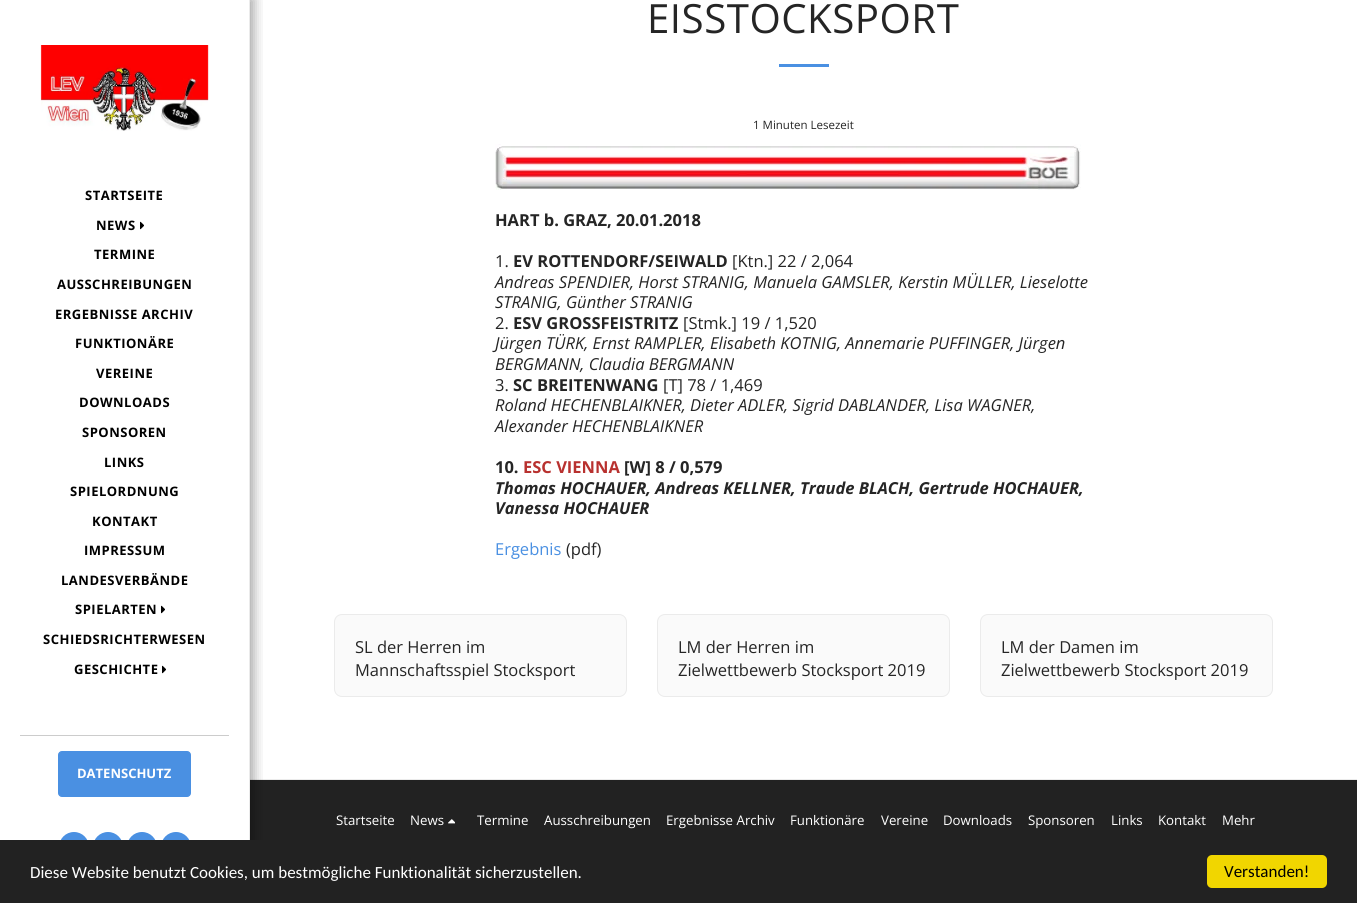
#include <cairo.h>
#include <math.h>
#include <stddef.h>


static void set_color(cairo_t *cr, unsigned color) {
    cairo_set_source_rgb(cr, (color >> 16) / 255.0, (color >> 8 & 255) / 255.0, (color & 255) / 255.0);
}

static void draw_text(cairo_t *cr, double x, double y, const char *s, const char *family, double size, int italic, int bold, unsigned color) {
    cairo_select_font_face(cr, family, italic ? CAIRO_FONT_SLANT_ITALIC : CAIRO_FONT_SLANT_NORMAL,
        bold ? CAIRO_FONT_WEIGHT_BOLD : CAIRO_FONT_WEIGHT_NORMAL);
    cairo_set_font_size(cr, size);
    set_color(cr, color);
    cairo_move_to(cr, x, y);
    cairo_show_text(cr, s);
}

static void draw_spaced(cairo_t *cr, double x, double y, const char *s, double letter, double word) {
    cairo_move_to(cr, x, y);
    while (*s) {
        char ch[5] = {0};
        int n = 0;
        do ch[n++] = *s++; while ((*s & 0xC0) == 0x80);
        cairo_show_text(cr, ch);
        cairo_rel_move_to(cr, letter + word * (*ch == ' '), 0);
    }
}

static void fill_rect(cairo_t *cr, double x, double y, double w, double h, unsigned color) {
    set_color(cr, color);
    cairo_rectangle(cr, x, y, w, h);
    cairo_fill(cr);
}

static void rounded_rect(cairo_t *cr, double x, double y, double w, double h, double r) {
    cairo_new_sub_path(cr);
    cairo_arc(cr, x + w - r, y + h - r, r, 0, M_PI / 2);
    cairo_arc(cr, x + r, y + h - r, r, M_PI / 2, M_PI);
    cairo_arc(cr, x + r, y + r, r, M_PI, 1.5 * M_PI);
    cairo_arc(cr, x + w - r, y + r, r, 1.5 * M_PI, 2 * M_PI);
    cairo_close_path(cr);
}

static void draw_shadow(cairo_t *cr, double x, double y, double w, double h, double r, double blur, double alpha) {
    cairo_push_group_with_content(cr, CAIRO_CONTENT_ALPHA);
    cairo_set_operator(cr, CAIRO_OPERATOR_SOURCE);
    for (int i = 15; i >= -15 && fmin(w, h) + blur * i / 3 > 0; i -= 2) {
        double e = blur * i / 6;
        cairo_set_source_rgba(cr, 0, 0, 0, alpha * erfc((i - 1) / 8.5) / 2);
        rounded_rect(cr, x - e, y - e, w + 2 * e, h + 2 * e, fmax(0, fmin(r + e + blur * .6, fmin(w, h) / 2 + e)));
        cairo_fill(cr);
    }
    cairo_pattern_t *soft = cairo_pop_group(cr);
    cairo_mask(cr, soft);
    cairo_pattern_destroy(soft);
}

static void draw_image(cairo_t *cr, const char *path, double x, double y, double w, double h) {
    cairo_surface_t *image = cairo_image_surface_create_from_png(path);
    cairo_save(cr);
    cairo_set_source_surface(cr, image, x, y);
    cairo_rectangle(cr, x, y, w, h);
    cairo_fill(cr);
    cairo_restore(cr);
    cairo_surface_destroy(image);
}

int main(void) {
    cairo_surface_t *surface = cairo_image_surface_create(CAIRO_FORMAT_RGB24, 1357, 903);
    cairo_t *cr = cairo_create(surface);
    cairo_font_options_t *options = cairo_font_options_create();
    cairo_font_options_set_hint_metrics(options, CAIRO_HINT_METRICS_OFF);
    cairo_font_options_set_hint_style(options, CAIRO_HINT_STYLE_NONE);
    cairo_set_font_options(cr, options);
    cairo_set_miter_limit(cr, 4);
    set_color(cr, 0xFFFFFF);
    cairo_paint(cr);
    fill_rect(cr, 250, 779, 1107, 1, 0xEBEBEB);
    fill_rect(cr, 250, 780, 1107, 60, 0x222222);
    cairo_save(cr);
    cairo_rectangle(cr, 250, 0, 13, 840);
    cairo_clip(cr);
    set_color(cr, 0x000000);
    draw_shadow(cr, 0, -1, 254, 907, 0, 6, 0.35);
    cairo_restore(cr);
    fill_rect(cr, 249, 0, 1, 840, 0xEBEBEB);
    draw_image(cr, "assets/img1.png", 40, 45, 169, 86);
    cairo_select_font_face(cr, "Open Sans", CAIRO_FONT_SLANT_NORMAL, CAIRO_FONT_WEIGHT_BOLD);
    cairo_set_font_size(cr, 13);
    set_color(cr, 0x000000);
    draw_spaced(cr, 85, 200, "STARTSEITE", 0.5, 0);
    draw_spaced(cr, 96, 230, "NEWS", 0.5, 0);
    draw_image(cr, "assets/img2.png", 140, 221, 4, 9);
    draw_spaced(cr, 94, 259, "TERMINE", 0.5, 0);
    draw_spaced(cr, 57, 289, "AUSSCHREIBUNGEN", 0.5, 0);
    draw_spaced(cr, 55, 319, "ERGEBNISSE ARCHIV", 0.5, 0);
    draw_spaced(cr, 75, 348, "FUNKTIONÄRE", 0.5, 0);
    draw_spaced(cr, 96, 378, "VEREINE", 0.5, 0);
    draw_spaced(cr, 79, 407, "DOWNLOADS", 0.5, 0);
    draw_spaced(cr, 82, 437, "SPONSOREN", 0.5, 0);
    draw_spaced(cr, 104, 467, "LINKS", 0.5, 0);
    draw_spaced(cr, 70, 496, "SPIELORDNUNG", 0.5, 0);
    draw_spaced(cr, 92, 526, "KONTAKT", 0.5, 0);
    draw_spaced(cr, 84, 555, "IMPRESSUM", 0.5, 0);
    draw_spaced(cr, 61, 585, "LANDESVERBÄNDE", 0.5, 0);
    draw_spaced(cr, 75, 614, "SPIELARTEN", 0.5, 0);
    draw_image(cr, "assets/img2.png", 161, 605, 4, 9);
    draw_spaced(cr, 43, 644, "SCHIEDSRICHTERWESEN", 0.5, 0);
    draw_spaced(cr, 74, 674, "GESCHICHTE", 0.5, 0);
    draw_image(cr, "assets/img2.png", 162, 665, 4, 9);
    fill_rect(cr, 20, 735, 209, 1, 0xCCCCCC);
    set_color(cr, 0x4A90E2);
    rounded_rect(cr, 58.5, 751.5, 132, 45, 3.5);
    cairo_fill_preserve(cr);
    cairo_set_line_width(cr, 1);
    cairo_stroke(cr);
    draw_text(cr, 77, 778, "DATENSCHUTZ", "Open Sans", 13, 0, 1, 0xFFFFFF);
    set_color(cr, 0x4A90E2);
    cairo_new_path(cr);
    cairo_arc(cr, 74, 847, 15, 0, 2 * M_PI);
    cairo_fill(cr);
    cairo_arc(cr, 108, 847, 15, 0, 2 * M_PI);
    cairo_fill(cr);
    cairo_arc(cr, 142, 847, 15, 0, 2 * M_PI);
    cairo_fill(cr);
    cairo_arc(cr, 176, 847, 15, 0, 2 * M_PI);
    cairo_fill(cr);
    cairo_select_font_face(cr, "Open Sans", CAIRO_FONT_SLANT_NORMAL, CAIRO_FONT_WEIGHT_NORMAL);
    cairo_set_font_size(cr, 40.25);
    set_color(cr, 0x252525);
    draw_spaced(cr, 647, 33, "EISSTOCKSPORT", 0.5, 0);
    fill_rect(cr, 779, 64, 50, 3, 0x4A90E2);
    draw_text(cr, 753, 129, "1 Minuten Lesezeit", "Open Sans", 11.5, 0, 0, 0x252525);
    draw_image(cr, "assets/img3.png", 495, 144, 586, 46);
    draw_text(cr, 495, 226, "HART b. GRAZ, 20.01.2018", "Open Sans", 16.5, 0, 1, 0x252525);
    draw_text(cr, 495, 267, "1.", "Open Sans", 16.5, 0, 0, 0x252525);
    draw_text(cr, 513, 267, "EV ROTTENDORF/SEIWALD", "Open Sans", 16.5, 0, 1, 0x252525);
    draw_text(cr, 732, 267, "[Ktn.] 22 / 2,064", "Open Sans", 16.5, 0, 0, 0x252525);
    draw_text(cr, 495, 288, "Andreas SPENDIER, Horst STRANIG, Manuela GAMSLER, Kerstin MÜLLER, Lieselotte", "Open Sans", 16.5, 1, 0, 0x252525);
    draw_text(cr, 495, 308, "STRANIG, Günther STRANIG", "Open Sans", 16.5, 1, 0, 0x252525);
    draw_text(cr, 495, 329, "2.", "Open Sans", 16.5, 0, 0, 0x252525);
    draw_text(cr, 513, 329, "ESV GROSSFEISTRITZ", "Open Sans", 16.5, 0, 1, 0x252525);
    draw_text(cr, 683, 329, "[Stmk.] 19 / 1,520", "Open Sans", 16.5, 0, 0, 0x252525);
    draw_text(cr, 495, 349, "Jürgen TÜRK, Ernst RAMPLER, Elisabeth KOTNIG, Annemarie PUFFINGER, Jürgen", "Open Sans", 16.5, 1, 0, 0x252525);
    draw_text(cr, 495, 370, "BERGMANN, Claudia BERGMANN", "Open Sans", 16.5, 1, 0, 0x252525);
    draw_text(cr, 495, 391, "3.", "Open Sans", 16.5, 0, 0, 0x252525);
    draw_text(cr, 513, 391, "SC BREITENWANG", "Open Sans", 16.5, 0, 1, 0x252525);
    draw_text(cr, 663, 391, "[T] 78 / 1,469", "Open Sans", 16.5, 0, 0, 0x252525);
    draw_text(cr, 495, 411, "Roland HECHENBLAIKNER, Dieter ADLER, Sigrid DABLANDER, Lisa WAGNER,", "Open Sans", 16.5, 1, 0, 0x252525);
    draw_text(cr, 495, 432, "Alexander HECHENBLAIKNER", "Open Sans", 16.5, 1, 0, 0x252525);
    draw_text(cr, 495, 473, "10.", "Open Sans", 16.5, 0, 1, 0x252525);
    draw_text(cr, 523, 473, "ESC VIENNA", "Open Sans", 16.5, 0, 1, 0xB8312F);
    draw_text(cr, 624, 473, "[W] 8 / 0,579", "Open Sans", 16.5, 0, 1, 0x252525);
    draw_text(cr, 495, 494, "Thomas HOCHAUER, Andreas KELLNER, Traude BLACH, Gertrude HOCHAUER,", "Open Sans", 16.5, 1, 1, 0x252525);
    draw_text(cr, 495, 514, "Vanessa HOCHAUER", "Open Sans", 16.5, 1, 1, 0x252525);
    draw_text(cr, 495, 555, "Ergebnis", "Open Sans", 16.5, 0, 0, 0x4A90E2);
    draw_text(cr, 566, 555, "(pdf)", "Open Sans", 16.5, 0, 0, 0x252525);
    set_color(cr, 0xFAFAFA);
    rounded_rect(cr, 334.5, 614.5, 292, 82, 7.5);
    cairo_fill_preserve(cr);
    set_color(cr, 0xEBEBEB);
    cairo_stroke(cr);
    draw_text(cr, 355, 653, "SL der Herren im", "Open Sans", 16.5, 0, 0, 0x252525);
    draw_text(cr, 355, 676, "Mannschaftsspiel Stocksport", "Open Sans", 16.5, 0, 0, 0x252525);
    set_color(cr, 0xFAFAFA);
    rounded_rect(cr, 657.5, 614.5, 292, 82, 7.5);
    cairo_fill_preserve(cr);
    set_color(cr, 0xEBEBEB);
    cairo_stroke(cr);
    draw_text(cr, 678, 653, "LM der Herren im", "Open Sans", 16.5, 0, 0, 0x252525);
    draw_text(cr, 678, 676, "Zielwettbewerb Stocksport 2019", "Open Sans", 16.5, 0, 0, 0x252525);
    set_color(cr, 0xFAFAFA);
    rounded_rect(cr, 980.5, 614.5, 292, 82, 7.5);
    cairo_fill_preserve(cr);
    set_color(cr, 0xEBEBEB);
    cairo_stroke(cr);
    draw_text(cr, 1001, 653, "LM der Damen im", "Open Sans", 16.5, 0, 0, 0x252525);
    draw_text(cr, 1001, 676, "Zielwettbewerb Stocksport 2019", "Open Sans", 16.5, 0, 0, 0x252525);
    draw_text(cr, 336, 825, "Startseite", "Open Sans", 13.25, 0, 0, 0xFFFFFF);
    draw_text(cr, 410, 825, "News", "Open Sans", 13.25, 0, 0, 0xFFFFFF);
    draw_image(cr, "assets/img4.png", 448, 819, 7, 5);
    draw_text(cr, 477, 825, "Termine", "Open Sans", 13.25, 0, 0, 0xFFFFFF);
    draw_text(cr, 544, 825, "Ausschreibungen", "Open Sans", 13.25, 0, 0, 0xFFFFFF);
    draw_text(cr, 666, 825, "Ergebnisse Archiv", "Open Sans", 13.25, 0, 0, 0xFFFFFF);
    draw_text(cr, 790, 825, "Funktionäre", "Open Sans", 13.25, 0, 0, 0xFFFFFF);
    draw_text(cr, 881, 825, "Vereine", "Open Sans", 13.25, 0, 0, 0xFFFFFF);
    draw_text(cr, 943, 825, "Downloads", "Open Sans", 13.25, 0, 0, 0xFFFFFF);
    draw_text(cr, 1028, 825, "Sponsoren", "Open Sans", 13.25, 0, 0, 0xFFFFFF);
    draw_text(cr, 1111, 825, "Links", "Open Sans", 13.25, 0, 0, 0xFFFFFF);
    draw_text(cr, 1158, 825, "Kontakt", "Open Sans", 13.25, 0, 0, 0xFFFFFF);
    draw_text(cr, 1222, 825, "Mehr", "Open Sans", 13.25, 0, 0, 0xFFFFFF);
    fill_rect(cr, 0, 840, 1357, 63, 0x222222);
    draw_text(cr, 30, 878, "Diese Website benutzt Cookies, um bestmögliche Funktionalität sicherzustellen.", "Carlito", 17, 0, 0, 0xFFFFFF);
    set_color(cr, 0xF1D600);
    rounded_rect(cr, 1207, 855, 120, 33, 5);
    cairo_fill(cr);
    draw_text(cr, 1224, 877, "Verstanden!", "Carlito", 17, 0, 0, 0x000000);
    cairo_surface_write_to_png(surface, "output.png");
    cairo_font_options_destroy(options);
    cairo_destroy(cr);
    cairo_surface_destroy(surface);
    return 0;
}
